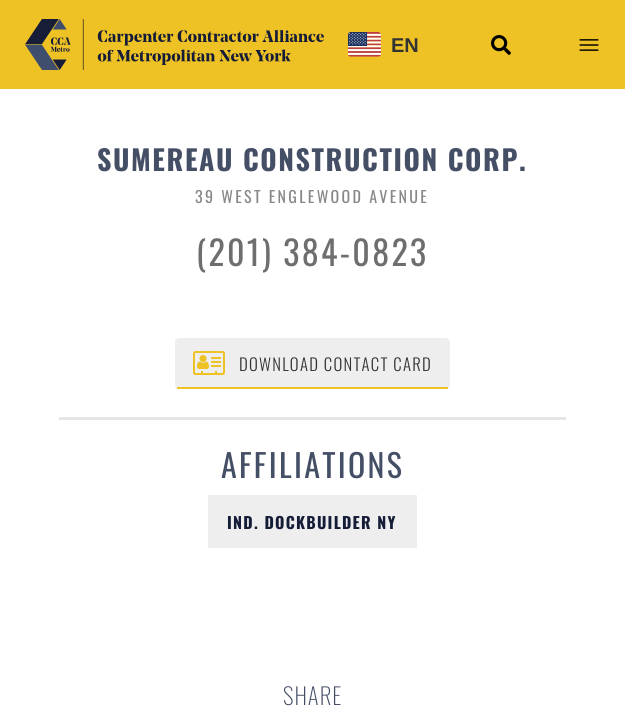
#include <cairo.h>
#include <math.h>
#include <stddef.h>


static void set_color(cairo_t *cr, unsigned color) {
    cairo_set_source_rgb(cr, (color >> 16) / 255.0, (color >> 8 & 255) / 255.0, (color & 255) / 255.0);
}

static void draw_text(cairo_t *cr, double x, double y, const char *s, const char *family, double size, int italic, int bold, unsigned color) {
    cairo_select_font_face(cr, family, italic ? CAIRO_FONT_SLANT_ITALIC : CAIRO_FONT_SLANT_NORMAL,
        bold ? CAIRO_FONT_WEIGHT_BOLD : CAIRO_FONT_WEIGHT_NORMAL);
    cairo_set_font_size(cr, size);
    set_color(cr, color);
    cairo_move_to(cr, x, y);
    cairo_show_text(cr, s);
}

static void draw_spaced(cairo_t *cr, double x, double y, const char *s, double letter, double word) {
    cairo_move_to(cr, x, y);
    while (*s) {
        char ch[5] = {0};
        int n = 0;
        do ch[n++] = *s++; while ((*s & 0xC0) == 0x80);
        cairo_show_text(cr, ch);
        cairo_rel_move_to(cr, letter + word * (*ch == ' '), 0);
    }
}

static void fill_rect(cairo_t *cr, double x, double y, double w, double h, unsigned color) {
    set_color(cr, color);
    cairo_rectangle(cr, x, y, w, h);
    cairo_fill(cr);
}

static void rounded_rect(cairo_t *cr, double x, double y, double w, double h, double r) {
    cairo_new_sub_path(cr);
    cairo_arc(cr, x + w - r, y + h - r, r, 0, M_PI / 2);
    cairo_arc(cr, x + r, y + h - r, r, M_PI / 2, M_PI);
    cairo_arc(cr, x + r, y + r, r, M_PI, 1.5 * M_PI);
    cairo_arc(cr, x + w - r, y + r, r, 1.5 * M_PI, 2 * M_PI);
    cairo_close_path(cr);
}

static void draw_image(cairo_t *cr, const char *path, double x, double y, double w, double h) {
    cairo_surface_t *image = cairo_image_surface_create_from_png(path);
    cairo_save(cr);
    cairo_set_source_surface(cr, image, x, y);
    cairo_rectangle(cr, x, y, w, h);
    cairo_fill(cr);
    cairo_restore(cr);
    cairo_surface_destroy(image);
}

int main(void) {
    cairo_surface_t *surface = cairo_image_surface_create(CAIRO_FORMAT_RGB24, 625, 718);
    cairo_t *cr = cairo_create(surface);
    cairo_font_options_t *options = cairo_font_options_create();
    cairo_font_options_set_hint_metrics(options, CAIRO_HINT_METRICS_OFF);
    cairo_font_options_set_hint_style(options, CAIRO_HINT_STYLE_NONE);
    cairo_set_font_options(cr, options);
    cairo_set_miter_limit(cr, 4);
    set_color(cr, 0xFFFFFF);
    cairo_paint(cr);
    fill_rect(cr, 0, 0, 625, 89, 0xEEC225);
    draw_image(cr, "assets/img1.png", 25, 19, 299, 51);
    draw_image(cr, "assets/img2.png", 348, 32, 33, 25);
    draw_text(cr, 391, 52, "EN", "Liberation Sans", 20, 0, 1, 0x333333);
    draw_image(cr, "assets/img3.png", 491, 35, 20, 20);
    draw_image(cr, "assets/img4.png", 579, 39, 20, 12);
    cairo_select_font_face(cr, "Oswald", CAIRO_FONT_SLANT_NORMAL, CAIRO_FONT_WEIGHT_BOLD);
    cairo_set_font_size(cr, 28);
    set_color(cr, 0x444E65);
    draw_spaced(cr, 97, 171, "SUMEREAU CONSTRUCTION CORP.", 1.6, 0);
    cairo_select_font_face(cr, "Oswald", CAIRO_FONT_SLANT_NORMAL, CAIRO_FONT_WEIGHT_NORMAL);
    cairo_set_font_size(cr, 16);
    set_color(cr, 0x888888);
    draw_spaced(cr, 195, 203, "39 WEST ENGLEWOOD AVENUE", 2.3, 0);
    cairo_set_font_size(cr, 34);
    set_color(cr, 0x6E6E6E);
    draw_spaced(cr, 196, 266, "(201) 384-0823", 2.3, 0);
    set_color(cr, 0xEEEEEE);
    rounded_rect(cr, 175, 338, 275, 51, 4);
    cairo_fill(cr);
    fill_rect(cr, 177, 387, 271, 2, 0xEEC225);
    draw_image(cr, "assets/img5.png", 193, 351, 32, 24);
    cairo_select_font_face(cr, "Oswald Light", CAIRO_FONT_SLANT_NORMAL, CAIRO_FONT_WEIGHT_NORMAL);
    cairo_set_font_size(cr, 16.75);
    set_color(cr, 0x333333);
    draw_spaced(cr, 239, 371, "DOWNLOAD CONTACT CARD", 1.25, 0);
    fill_rect(cr, 59, 417, 507, 3, 0xE6E6E6);
    cairo_select_font_face(cr, "Oswald", CAIRO_FONT_SLANT_NORMAL, CAIRO_FONT_WEIGHT_NORMAL);
    cairo_set_font_size(cr, 32);
    set_color(cr, 0x444E65);
    draw_spaced(cr, 221, 478, "AFFILIATIONS", 2.3, 0);
    fill_rect(cr, 208, 495, 209, 53, 0xEEEEEE);
    cairo_select_font_face(cr, "Oswald", CAIRO_FONT_SLANT_NORMAL, CAIRO_FONT_WEIGHT_BOLD);
    cairo_set_font_size(cr, 16);
    set_color(cr, 0x141C37);
    draw_spaced(cr, 227, 529, "IND. DOCKBUILDER NY", 1.25, 0);
    cairo_select_font_face(cr, "Oswald ExtraLight", CAIRO_FONT_SLANT_NORMAL, CAIRO_FONT_WEIGHT_NORMAL);
    cairo_set_font_size(cr, 23);
    set_color(cr, 0x444E65);
    draw_spaced(cr, 283, 705, "SHARE", 1, 0);
    cairo_surface_write_to_png(surface, "output.png");
    cairo_font_options_destroy(options);
    cairo_destroy(cr);
    cairo_surface_destroy(surface);
    return 0;
}
